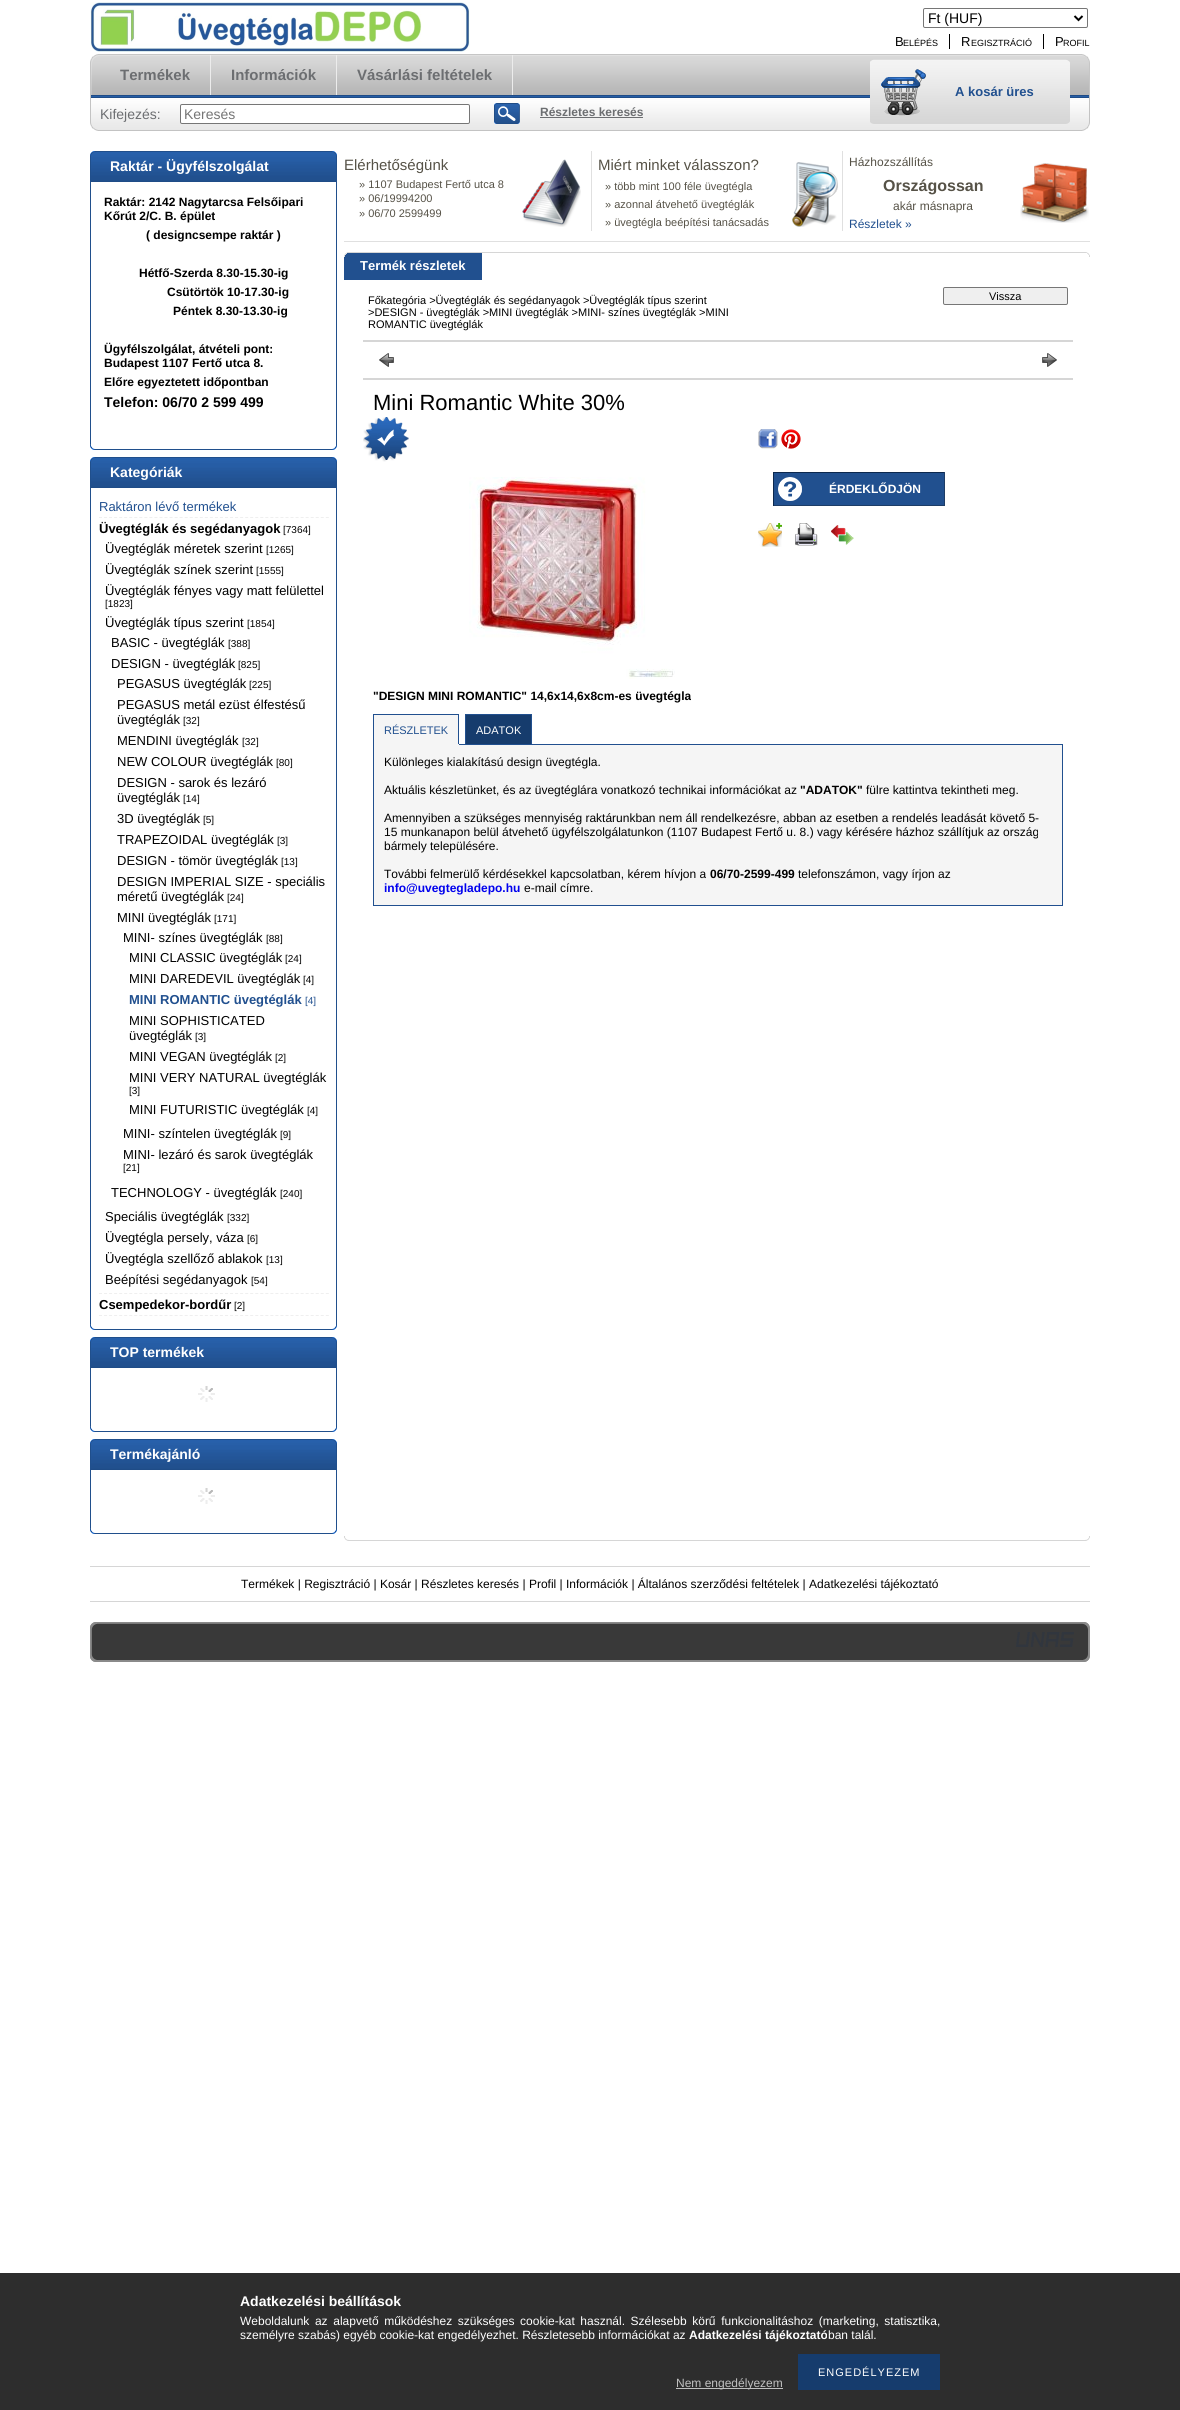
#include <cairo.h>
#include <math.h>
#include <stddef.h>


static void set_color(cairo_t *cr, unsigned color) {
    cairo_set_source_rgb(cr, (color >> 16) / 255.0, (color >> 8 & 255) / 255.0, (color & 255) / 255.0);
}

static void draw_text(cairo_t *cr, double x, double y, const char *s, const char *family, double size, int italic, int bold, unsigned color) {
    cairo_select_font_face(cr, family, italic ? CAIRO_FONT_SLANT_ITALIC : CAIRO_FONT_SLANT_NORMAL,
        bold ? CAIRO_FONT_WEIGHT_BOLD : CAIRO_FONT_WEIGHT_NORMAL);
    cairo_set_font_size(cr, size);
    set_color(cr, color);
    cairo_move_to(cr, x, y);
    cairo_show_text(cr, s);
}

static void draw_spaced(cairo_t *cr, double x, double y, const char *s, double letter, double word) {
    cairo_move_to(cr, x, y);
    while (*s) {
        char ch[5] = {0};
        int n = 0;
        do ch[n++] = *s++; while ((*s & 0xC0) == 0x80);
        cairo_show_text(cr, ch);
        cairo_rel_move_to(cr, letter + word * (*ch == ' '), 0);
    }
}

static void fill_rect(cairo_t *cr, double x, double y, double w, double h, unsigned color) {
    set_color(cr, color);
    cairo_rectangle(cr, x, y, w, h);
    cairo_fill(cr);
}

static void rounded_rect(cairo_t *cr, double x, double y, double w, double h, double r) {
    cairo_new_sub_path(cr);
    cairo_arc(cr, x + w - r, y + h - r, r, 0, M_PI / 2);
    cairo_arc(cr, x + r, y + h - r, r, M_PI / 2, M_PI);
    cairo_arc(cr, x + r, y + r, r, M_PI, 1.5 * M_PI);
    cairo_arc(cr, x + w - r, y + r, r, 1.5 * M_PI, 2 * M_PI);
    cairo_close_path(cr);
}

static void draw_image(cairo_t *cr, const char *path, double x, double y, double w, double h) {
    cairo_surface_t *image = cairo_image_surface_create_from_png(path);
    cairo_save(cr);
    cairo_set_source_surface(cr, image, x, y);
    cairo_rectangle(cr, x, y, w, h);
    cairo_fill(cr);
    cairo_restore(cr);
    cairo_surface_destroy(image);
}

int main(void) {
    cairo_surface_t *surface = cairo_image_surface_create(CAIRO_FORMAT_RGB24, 1180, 2410);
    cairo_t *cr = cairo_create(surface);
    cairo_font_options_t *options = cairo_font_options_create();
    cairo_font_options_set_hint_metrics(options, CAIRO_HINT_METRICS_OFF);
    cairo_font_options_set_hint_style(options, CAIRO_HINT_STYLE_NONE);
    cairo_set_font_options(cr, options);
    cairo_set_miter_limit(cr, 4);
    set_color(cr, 0xFFFFFF);
    cairo_paint(cr);
    draw_image(cr, "assets/img1.png", 90, 2, 380, 50);
    rounded_rect(cr, 923.5, 8.5, 164, 19, 1.5);
    set_color(cr, 0x767676);
    cairo_set_line_width(cr, 1);
    cairo_stroke(cr);
    cairo_new_path(cr);
    cairo_move_to(cr, 1074.5, 16);
    cairo_line_to(cr, 1078.5, 20);
    cairo_line_to(cr, 1082.5, 16);
    set_color(cr, 0x000000);
    cairo_set_line_width(cr, 2);
    cairo_stroke(cr);
    draw_text(cr, 928, 23, "Ft (HUF)", "Liberation Sans", 14, 0, 0, 0x000000);
    draw_text(cr, 895, 46, "B", "Liberation Sans", 13, 0, 0, 0x000000);
    draw_text(cr, 903, 46, "ELÉPÉS", "Liberation Sans", 9, 0, 0, 0x000000);
    fill_rect(cr, 949, 34, 1, 15, 0x000000);
    draw_text(cr, 961, 46, "R", "Liberation Sans", 13, 0, 0, 0x000000);
    draw_text(cr, 971, 46, "EGISZTRÁCIÓ", "Liberation Sans", 9, 0, 0, 0x000000);
    fill_rect(cr, 1043, 34, 1, 15, 0x000000);
    draw_text(cr, 1055, 46, "P", "Liberation Sans", 13, 0, 0, 0x000000);
    draw_text(cr, 1063, 46, "ROFIL", "Liberation Sans", 9, 0, 0, 0x000000);
    draw_image(cr, "assets/img2.png", 90, 54, 10, 77);
    draw_image(cr, "assets/img3.png", 100, 54, 980, 77);
    fill_rect(cr, 210, 55, 1, 40, 0xECECEC);
    draw_text(cr, 120, 80, "Termékek", "Liberation Sans", 15, 0, 1, 0x6C6E71);
    fill_rect(cr, 336, 55, 1, 40, 0xECECEC);
    draw_text(cr, 231, 80, "Információk", "Liberation Sans", 15, 0, 1, 0x6C6E71);
    fill_rect(cr, 512, 55, 1, 40, 0xECECEC);
    draw_text(cr, 357, 80, "Vásárlási feltételek", "Liberation Sans", 15, 0, 1, 0x6C6E71);
    draw_text(cr, 100, 119, "Kifejezés:", "Liberation Sans", 14, 0, 0, 0x6C6E71);
    set_color(cr, 0xFFFFFF);
    rounded_rect(cr, 180.5, 104.5, 289, 19, 1.5);
    cairo_fill_preserve(cr);
    set_color(cr, 0x767676);
    cairo_set_line_width(cr, 1);
    cairo_stroke(cr);
    draw_text(cr, 184, 119, "Keresés", "Liberation Sans", 14, 0, 0, 0x757575);
    draw_image(cr, "assets/img4.png", 494, 103, 26, 21);
    draw_text(cr, 540, 116, "Részletes keresés", "Liberation Sans", 12, 0, 1, 0x6C6E71);
    fill_rect(cr, 540, 117, 103, 1, 0x6C6E71);
    draw_image(cr, "assets/img5.png", 870, 59, 6, 65);
    draw_image(cr, "assets/img6.png", 876, 59, 188, 65);
    draw_image(cr, "assets/img7.png", 881, 69, 45, 47);
    draw_text(cr, 955, 96, "A kosár üres", "Liberation Sans", 13, 0, 1, 0x21508F);
    draw_image(cr, "assets/img8.png", 1064, 59, 6, 65);
    draw_image(cr, "assets/img9.png", 1080, 54, 10, 77);
    draw_image(cr, "assets/img10.png", 344, 1536, 746, 5);
    draw_image(cr, "assets/img11.png", 90, 151, 247, 31);
    draw_text(cr, 110, 171, "Raktár - Ügyfélszolgálat", "Liberation Sans", 14, 0, 1, 0xFFFFFF);
    fill_rect(cr, 336, 182, 1, 262, 0x204F8C);
    fill_rect(cr, 90, 182, 1, 262, 0x204F8C);
    draw_text(cr, 104, 206, "Raktár: 2142 Nagytarcsa Felsőipari", "Liberation Sans", 12, 0, 1, 0x000000);
    draw_text(cr, 104, 220, "Kőrút 2/C. B. épület", "Liberation Sans", 12, 0, 1, 0x000000);
    draw_text(cr, 146, 239, "( designcsempe raktár )", "Liberation Sans", 12, 0, 1, 0x000000);
    draw_text(cr, 139, 277, "Hétfő-Szerda 8.30-15.30-ig", "Liberation Sans", 12, 0, 1, 0x000000);
    draw_text(cr, 167, 296, "Csütörtök 10-17.30-ig", "Liberation Sans", 12, 0, 1, 0x000000);
    draw_text(cr, 173, 315, "Péntek 8.30-13.30-ig", "Liberation Sans", 12, 0, 1, 0x000000);
    draw_text(cr, 104, 353, "Ügyfélszolgálat, átvételi pont:", "Liberation Sans", 12, 0, 1, 0x000000);
    draw_text(cr, 104, 367, "Budapest 1107 Fertő utca 8.", "Liberation Sans", 12, 0, 1, 0x000000);
    draw_text(cr, 104, 386, "Előre egyeztetett időpontban", "Liberation Sans", 12, 0, 1, 0x000000);
    draw_text(cr, 104, 407, "Telefon: 06/70 2 599 499", "Liberation Sans", 14, 0, 1, 0x000000);
    draw_image(cr, "assets/img12.png", 90, 444, 247, 6);
    draw_image(cr, "assets/img11.png", 90, 457, 247, 31);
    draw_text(cr, 110, 477, "Kategóriák", "Liberation Sans", 14, 0, 1, 0xFFFFFF);
    fill_rect(cr, 336, 488, 1, 836, 0x204F8C);
    fill_rect(cr, 90, 488, 1, 836, 0x204F8C);
    cairo_new_path(cr);
    cairo_move_to(cr, 99, 517.5);
    cairo_line_to(cr, 329, 517.5);
    set_color(cr, 0xEFEFEF);
    cairo_set_dash(cr, (double[]){3, 2.04}, 2, 0);
    cairo_stroke(cr);
    draw_text(cr, 99, 511, "Raktáron lévő termékek", "Liberation Sans", 13, 0, 0, 0x21508F);
    cairo_new_path(cr);
    cairo_move_to(cr, 99, 1293.5);
    cairo_line_to(cr, 329, 1293.5);
    set_color(cr, 0xEFEFEF);
    cairo_stroke(cr);
    draw_text(cr, 99, 533, "Üvegtéglák és segédanyagok", "Liberation Sans", 13, 0, 1, 0x000000);
    draw_text(cr, 283, 533, "[7364]", "Liberation Sans", 10, 0, 0, 0x000000);
    draw_text(cr, 105, 553, "Üvegtéglák méretek szerint", "Liberation Sans", 13, 0, 0, 0x000000);
    draw_text(cr, 266, 553, "[1265]", "Liberation Sans", 10, 0, 0, 0x000000);
    draw_text(cr, 105, 574, "Üvegtéglák színek szerint", "Liberation Sans", 13, 0, 0, 0x000000);
    draw_text(cr, 256, 574, "[1555]", "Liberation Sans", 10, 0, 0, 0x000000);
    draw_text(cr, 105, 595, "Üvegtéglák fényes vagy matt felülettel", "Liberation Sans", 13, 0, 0, 0x000000);
    draw_text(cr, 105, 607, "[1823]", "Liberation Sans", 10, 0, 0, 0x000000);
    draw_text(cr, 105, 627, "Üvegtéglák típus szerint", "Liberation Sans", 13, 0, 0, 0x000000);
    draw_text(cr, 247, 627, "[1854]", "Liberation Sans", 10, 0, 0, 0x000000);
    draw_text(cr, 111, 647, "BASIC - üvegtéglák", "Liberation Sans", 13, 0, 0, 0x000000);
    draw_text(cr, 228, 647, "[388]", "Liberation Sans", 10, 0, 0, 0x000000);
    draw_text(cr, 111, 668, "DESIGN - üvegtéglák", "Liberation Sans", 13, 0, 0, 0x000000);
    draw_text(cr, 238, 668, "[825]", "Liberation Sans", 10, 0, 0, 0x000000);
    draw_text(cr, 117, 688, "PEGASUS üvegtéglák", "Liberation Sans", 13, 0, 0, 0x000000);
    draw_text(cr, 249, 688, "[225]", "Liberation Sans", 10, 0, 0, 0x000000);
    draw_text(cr, 117, 709, "PEGASUS metál ezüst élfestésű", "Liberation Sans", 13, 0, 0, 0x000000);
    draw_text(cr, 117, 724, "üvegtéglák", "Liberation Sans", 13, 0, 0, 0x000000);
    draw_text(cr, 183, 724, "[32]", "Liberation Sans", 10, 0, 0, 0x000000);
    draw_text(cr, 117, 745, "MENDINI üvegtéglák", "Liberation Sans", 13, 0, 0, 0x000000);
    draw_text(cr, 242, 745, "[32]", "Liberation Sans", 10, 0, 0, 0x000000);
    draw_text(cr, 117, 766, "NEW COLOUR üvegtéglák", "Liberation Sans", 13, 0, 0, 0x000000);
    draw_text(cr, 276, 766, "[80]", "Liberation Sans", 10, 0, 0, 0x000000);
    draw_text(cr, 117, 787, "DESIGN - sarok és lezáró", "Liberation Sans", 13, 0, 0, 0x000000);
    draw_text(cr, 117, 802, "üvegtéglák", "Liberation Sans", 13, 0, 0, 0x000000);
    draw_text(cr, 183, 802, "[14]", "Liberation Sans", 10, 0, 0, 0x000000);
    draw_text(cr, 117, 823, "3D üvegtéglák", "Liberation Sans", 13, 0, 0, 0x000000);
    draw_text(cr, 203, 823, "[5]", "Liberation Sans", 10, 0, 0, 0x000000);
    draw_text(cr, 117, 844, "TRAPEZOIDAL üvegtéglák", "Liberation Sans", 13, 0, 0, 0x000000);
    draw_text(cr, 277, 844, "[3]", "Liberation Sans", 10, 0, 0, 0x000000);
    draw_text(cr, 117, 865, "DESIGN - tömör üvegtéglák", "Liberation Sans", 13, 0, 0, 0x000000);
    draw_text(cr, 281, 865, "[13]", "Liberation Sans", 10, 0, 0, 0x000000);
    draw_text(cr, 117, 886, "DESIGN IMPERIAL SIZE - speciális", "Liberation Sans", 13, 0, 0, 0x000000);
    draw_text(cr, 117, 901, "méretű üvegtéglák", "Liberation Sans", 13, 0, 0, 0x000000);
    draw_text(cr, 227, 901, "[24]", "Liberation Sans", 10, 0, 0, 0x000000);
    draw_text(cr, 117, 922, "MINI üvegtéglák", "Liberation Sans", 13, 0, 0, 0x000000);
    draw_text(cr, 214, 922, "[171]", "Liberation Sans", 10, 0, 0, 0x000000);
    draw_text(cr, 123, 942, "MINI- színes üvegtéglák", "Liberation Sans", 13, 0, 0, 0x000000);
    draw_text(cr, 266, 942, "[88]", "Liberation Sans", 10, 0, 0, 0x000000);
    draw_text(cr, 129, 962, "MINI CLASSIC üvegtéglák", "Liberation Sans", 13, 0, 0, 0x000000);
    draw_text(cr, 285, 962, "[24]", "Liberation Sans", 10, 0, 0, 0x000000);
    draw_text(cr, 129, 983, "MINI DAREDEVIL üvegtéglák", "Liberation Sans", 13, 0, 0, 0x000000);
    draw_text(cr, 303, 983, "[4]", "Liberation Sans", 10, 0, 0, 0x000000);
    draw_text(cr, 129, 1004, "MINI ROMANTIC üvegtéglák", "Liberation Sans", 13, 0, 1, 0x21508F);
    draw_text(cr, 305, 1004, "[4]", "Liberation Sans", 10, 0, 0, 0x21508F);
    draw_text(cr, 129, 1025, "MINI SOPHISTICATED", "Liberation Sans", 13, 0, 0, 0x000000);
    draw_text(cr, 129, 1040, "üvegtéglák", "Liberation Sans", 13, 0, 0, 0x000000);
    draw_text(cr, 195, 1040, "[3]", "Liberation Sans", 10, 0, 0, 0x000000);
    draw_text(cr, 129, 1061, "MINI VEGAN üvegtéglák", "Liberation Sans", 13, 0, 0, 0x000000);
    draw_text(cr, 275, 1061, "[2]", "Liberation Sans", 10, 0, 0, 0x000000);
    draw_text(cr, 129, 1082, "MINI VERY NATURAL üvegtéglák", "Liberation Sans", 13, 0, 0, 0x000000);
    draw_text(cr, 129, 1094, "[3]", "Liberation Sans", 10, 0, 0, 0x000000);
    draw_text(cr, 129, 1114, "MINI FUTURISTIC üvegtéglák", "Liberation Sans", 13, 0, 0, 0x000000);
    draw_text(cr, 307, 1114, "[4]", "Liberation Sans", 10, 0, 0, 0x000000);
    draw_text(cr, 123, 1138, "MINI- színtelen üvegtéglák", "Liberation Sans", 13, 0, 0, 0x000000);
    draw_text(cr, 280, 1138, "[9]", "Liberation Sans", 10, 0, 0, 0x000000);
    draw_text(cr, 123, 1159, "MINI- lezáró és sarok üvegtéglák", "Liberation Sans", 13, 0, 0, 0x000000);
    draw_text(cr, 123, 1171, "[21]", "Liberation Sans", 10, 0, 0, 0x000000);
    draw_text(cr, 111, 1197, "TECHNOLOGY - üvegtéglák", "Liberation Sans", 13, 0, 0, 0x000000);
    draw_text(cr, 280, 1197, "[240]", "Liberation Sans", 10, 0, 0, 0x000000);
    draw_text(cr, 105, 1221, "Speciális üvegtéglák", "Liberation Sans", 13, 0, 0, 0x000000);
    draw_text(cr, 227, 1221, "[332]", "Liberation Sans", 10, 0, 0, 0x000000);
    draw_text(cr, 105, 1242, "Üvegtégla persely, váza", "Liberation Sans", 13, 0, 0, 0x000000);
    draw_text(cr, 247, 1242, "[6]", "Liberation Sans", 10, 0, 0, 0x000000);
    draw_text(cr, 105, 1263, "Üvegtégla szellőző ablakok", "Liberation Sans", 13, 0, 0, 0x000000);
    draw_text(cr, 266, 1263, "[13]", "Liberation Sans", 10, 0, 0, 0x000000);
    draw_text(cr, 105, 1284, "Beépítési segédanyagok", "Liberation Sans", 13, 0, 0, 0x000000);
    draw_text(cr, 251, 1284, "[54]", "Liberation Sans", 10, 0, 0, 0x000000);
    cairo_new_path(cr);
    cairo_move_to(cr, 99, 1315.5);
    cairo_line_to(cr, 329, 1315.5);
    set_color(cr, 0xEFEFEF);
    cairo_stroke(cr);
    draw_text(cr, 99, 1309, "Csempedekor-bordűr", "Liberation Sans", 13, 0, 1, 0x000000);
    draw_text(cr, 234, 1309, "[2]", "Liberation Sans", 10, 0, 0, 0x000000);
    draw_image(cr, "assets/img12.png", 90, 1324, 247, 6);
    draw_image(cr, "assets/img11.png", 90, 1337, 247, 31);
    draw_text(cr, 110, 1357, "TOP termékek", "Liberation Sans", 14, 0, 1, 0xFFFFFF);
    fill_rect(cr, 336, 1368, 1, 58, 0x204F8C);
    fill_rect(cr, 90, 1368, 1, 58, 0x204F8C);
    draw_image(cr, "assets/img13.png", 198, 1386, 17, 16);
    draw_image(cr, "assets/img12.png", 90, 1426, 247, 6);
    draw_image(cr, "assets/img11.png", 90, 1439, 247, 31);
    draw_text(cr, 110, 1459, "Termékajánló", "Liberation Sans", 14, 0, 1, 0xFFFFFF);
    fill_rect(cr, 336, 1470, 1, 58, 0x204F8C);
    fill_rect(cr, 90, 1470, 1, 58, 0x204F8C);
    draw_image(cr, "assets/img13.png", 198, 1488, 17, 16);
    draw_image(cr, "assets/img12.png", 90, 1528, 247, 6);
    fill_rect(cr, 344, 241, 746, 1, 0xE0E0E0);
    draw_text(cr, 344, 170, "Elérhetőségünk", "Liberation Sans", 15, 0, 0, 0x565247);
    draw_text(cr, 359, 188, "» 1107 Budapest Fertő utca 8", "Liberation Sans", 11, 0, 0, 0x565247);
    draw_text(cr, 359, 202, "» 06/19994200", "Liberation Sans", 11, 0, 0, 0x565247);
    draw_text(cr, 359, 217, "» 06/70 2599499", "Liberation Sans", 11, 0, 0, 0x565247);
    draw_image(cr, "assets/img14.png", 522, 159, 59, 68);
    fill_rect(cr, 591, 151, 1, 80, 0xE0E0E0);
    draw_text(cr, 598, 170, "Miért minket válasszon?", "Liberation Sans", 15, 0, 0, 0x565247);
    draw_text(cr, 605, 190, "» több mint 100 féle üvegtégla", "Liberation Sans", 11, 0, 0, 0x565247);
    draw_text(cr, 605, 208, "» azonnal átvehető üvegtéglák", "Liberation Sans", 11, 0, 0, 0x565247);
    draw_text(cr, 605, 226, "» üvegtégla beépítési tanácsadás", "Liberation Sans", 11, 0, 0, 0x565247);
    draw_image(cr, "assets/img15.png", 792, 162, 46, 65);
    fill_rect(cr, 842, 151, 1, 80, 0xE0E0E0);
    draw_text(cr, 849, 166, "Házhozszállítás", "Liberation Sans", 12, 0, 0, 0x565247);
    draw_text(cr, 883, 191, "Országossan", "Liberation Sans", 16, 0, 1, 0x565247);
    draw_text(cr, 893, 210, "akár másnapra", "Liberation Sans", 12, 0, 0, 0x565247);
    draw_text(cr, 849, 228, "Részletek »", "Liberation Sans", 12, 0, 0, 0x21508F);
    draw_image(cr, "assets/img16.png", 1020, 163, 69, 60);
    fill_rect(cr, 344, 253, 138, 27, 0x21508F);
    draw_image(cr, "assets/img17.png", 344, 252, 746, 5);
    draw_text(cr, 360, 270, "Termék részletek", "Liberation Sans", 13, 0, 1, 0xFFFFFF);
    draw_text(cr, 368, 304, "Főkategória >Üvegtéglák és segédanyagok >Üvegtéglák típus szerint", "Liberation Sans", 11, 0, 0, 0x000000);
    draw_text(cr, 368, 316, ">DESIGN - üvegtéglák >MINI üvegtéglák >MINI- színes üvegtéglák >MINI", "Liberation Sans", 11, 0, 0, 0x000000);
    draw_text(cr, 368, 328, "ROMANTIC üvegtéglák", "Liberation Sans", 11, 0, 0, 0x000000);
    set_color(cr, 0xEFEFEF);
    rounded_rect(cr, 943.5, 287.5, 124, 17, 1.5);
    cairo_fill_preserve(cr);
    set_color(cr, 0x767676);
    cairo_set_dash(cr, NULL, 0, 0);
    cairo_stroke(cr);
    draw_text(cr, 989, 300, "Vissza", "Liberation Sans", 11, 0, 0, 0x000000);
    fill_rect(cr, 363, 340, 710, 2, 0xD6D6D6);
    draw_image(cr, "assets/img18.png", 379, 353, 15, 14);
    draw_image(cr, "assets/img19.png", 1042, 353, 15, 14);
    fill_rect(cr, 363, 378, 710, 2, 0xD6D6D6);
    draw_text(cr, 373, 410, "Mini Romantic White 30%", "Liberation Sans", 22, 0, 0, 0x000000);
    draw_image(cr, "assets/img20.png", 363, 417, 46, 45);
    draw_image(cr, "assets/img21.png", 469, 477, 206, 202);
    draw_image(cr, "assets/img22.png", 758, 429, 20, 20);
    draw_image(cr, "assets/img23.png", 781, 429, 20, 20);
    fill_rect(cr, 774, 473, 170, 32, 0x21508F);
    draw_image(cr, "assets/img24.png", 778, 477, 24, 24);
    fill_rect(cr, 773, 472, 172, 1, 0x0C284E);
    fill_rect(cr, 944, 472, 1, 34, 0x1E3D66);
    fill_rect(cr, 773, 505, 172, 1, 0x1E3D66);
    fill_rect(cr, 773, 472, 1, 34, 0x0C284E);
    draw_text(cr, 829, 493, "ÉRDEKLŐDJÖN", "Liberation Sans", 12, 0, 1, 0xFFFFFF);
    draw_image(cr, "assets/img25.png", 758, 523, 24, 24);
    draw_image(cr, "assets/img26.png", 795, 523, 23, 23);
    draw_image(cr, "assets/img27.png", 831, 525, 23, 20);
    draw_text(cr, 373, 700, "\"DESIGN MINI ROMANTIC\" 14,6x14,6x8cm-es üvegtégla", "Liberation Sans", 12, 0, 1, 0x000000);
    fill_rect(cr, 374, 715, 84, 29, 0xF5F5F5);
    fill_rect(cr, 373, 714, 86, 1, 0x21508F);
    set_color(cr, 0xF5F5F5);
    cairo_rectangle(cr, 373.5, 744.5, 689, 161);
    cairo_fill_preserve(cr);
    set_color(cr, 0x21508F);
    cairo_stroke(cr);
    fill_rect(cr, 458, 714, 1, 31, 0x21508F);
    fill_rect(cr, 373, 744, 86, 1, 0xF5F5F5);
    fill_rect(cr, 373, 714, 1, 31, 0x21508F);
    draw_text(cr, 384, 734, "RÉSZLETEK", "Liberation Sans", 11, 0, 0, 0x21508F);
    set_color(cr, 0x163C6D);
    cairo_rectangle(cr, 465.5, 714.5, 66, 30);
    cairo_fill_preserve(cr);
    set_color(cr, 0x21508F);
    cairo_stroke(cr);
    draw_text(cr, 476, 734, "ADATOK", "Liberation Sans", 11, 0, 0, 0xFFFFFF);
    draw_text(cr, 384, 766, "Különleges kialakítású design üvegtégla.", "Liberation Sans", 12, 0, 0, 0x000000);
    draw_text(cr, 384, 794, "Aktuális készletünket, és az üvegtéglára vonatkozó technikai információkat az", "Liberation Sans", 12, 0, 0, 0x000000);
    draw_text(cr, 800, 794, "\"ADATOK\"", "Liberation Sans", 12, 0, 1, 0x000000);
    draw_text(cr, 866, 794, "fülre kattintva tekintheti meg.", "Liberation Sans", 12, 0, 0, 0x000000);
    draw_text(cr, 384, 822, "Amennyiben a szükséges mennyiség raktárunkban nem áll rendelkezésre, abban az esetben a rendelés leadását követő 5-", "Liberation Sans", 12, 0, 0, 0x000000);
    draw_text(cr, 384, 836, "15 munkanapon belül átvehető ügyfélszolgálatunkon (1107 Budapest Fertő u. 8.) vagy kérésére házhoz szállítjuk az ország", "Liberation Sans", 12, 0, 0, 0x000000);
    draw_text(cr, 384, 850, "bármely településére.", "Liberation Sans", 12, 0, 0, 0x000000);
    draw_text(cr, 384, 878, "További felmerülő kérdésekkel kapcsolatban, kérem hívjon a", "Liberation Sans", 12, 0, 0, 0x000000);
    draw_text(cr, 710, 878, "06/70-2599-499", "Liberation Sans", 12, 0, 1, 0x000000);
    draw_text(cr, 798, 878, "telefonszámon, vagy írjon az", "Liberation Sans", 12, 0, 0, 0x000000);
    draw_text(cr, 384, 892, "info@uvegtegladepo.hu", "Liberation Sans", 12, 0, 1, 0x0000EE);
    draw_text(cr, 524, 892, "e-mail címre.", "Liberation Sans", 12, 0, 0, 0x000000);
    fill_rect(cr, 90, 1566, 1000, 1, 0xD6D6D6);
    fill_rect(cr, 90, 1601, 1000, 1, 0xD6D6D6);
    draw_text(cr, 241, 1588, "Termékek | Regisztráció | Kosár | Részletes keresés | Profil | Információk | Általános szerződési feltételek | Adatkezelési tájékoztató", "Liberation Sans", 12, 0, 0, 0x000000);
    draw_image(cr, "assets/img28.png", 90, 1622, 1000, 40);
    draw_image(cr, "assets/img29.png", 1016, 1632, 58, 15);
    fill_rect(cr, 0, 2273, 1180, 137, 0x2D2D2D);
    draw_text(cr, 240, 2306, "Adatkezelési beállítások", "Liberation Sans", 14, 0, 1, 0xFFFFFF);
    cairo_select_font_face(cr, "Liberation Sans", CAIRO_FONT_SLANT_NORMAL, CAIRO_FONT_WEIGHT_NORMAL);
    cairo_set_font_size(cr, 12);
    draw_spaced(cr, 240, 2325, "Weboldalunk az alapvető működéshez szükséges cookie-kat használ. Szélesebb körű funkcionalitáshoz (marketing, statisztika,", 0, 2.25);
    draw_text(cr, 240, 2339, "személyre szabás) egyéb cookie-kat engedélyezhet. Részletesebb információkat az", "Liberation Sans", 12, 0, 0, 0xFFFFFF);
    draw_text(cr, 689, 2339, "Adatkezelési tájékoztató", "Liberation Sans", 12, 0, 1, 0xFFFFFF);
    draw_text(cr, 828, 2339, "ban talál.", "Liberation Sans", 12, 0, 0, 0xFFFFFF);
    fill_rect(cr, 798, 2354, 142, 36, 0x163C6D);
    cairo_set_font_size(cr, 11);
    set_color(cr, 0xFFFFFF);
    draw_spaced(cr, 818, 2376, "ENGEDÉLYEZEM", 1, 0);
    fill_rect(cr, 676, 2388, 107, 1, 0xC0C0C0);
    draw_text(cr, 676, 2387, "Nem engedélyezem", "Liberation Sans", 12, 0, 0, 0xC0C0C0);
    cairo_surface_write_to_png(surface, "output.png");
    cairo_font_options_destroy(options);
    cairo_destroy(cr);
    cairo_surface_destroy(surface);
    return 0;
}
